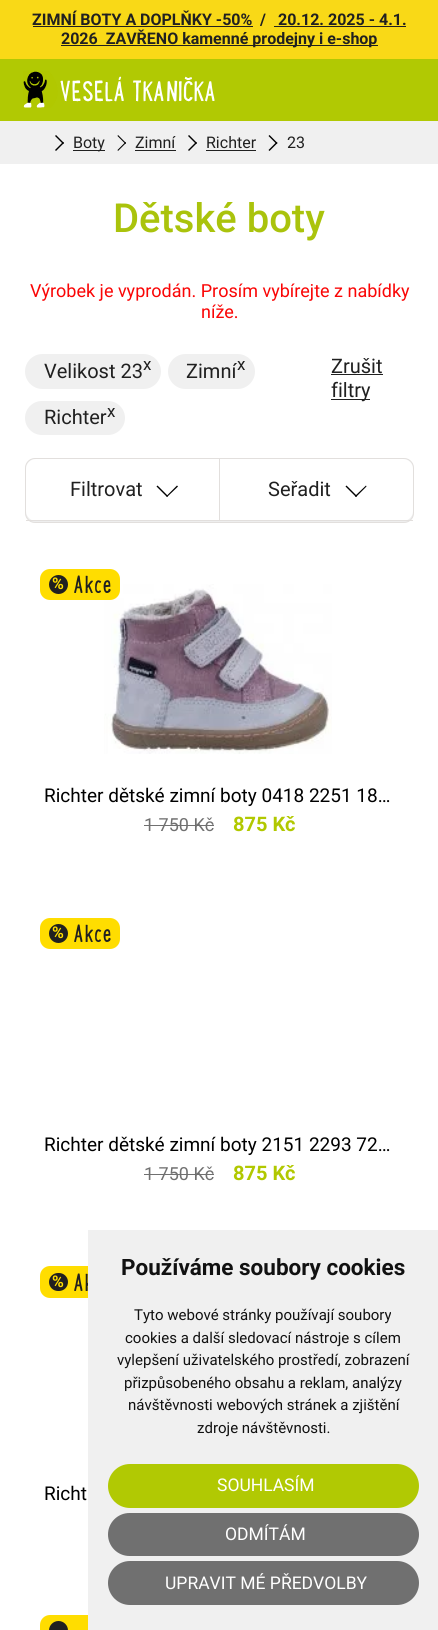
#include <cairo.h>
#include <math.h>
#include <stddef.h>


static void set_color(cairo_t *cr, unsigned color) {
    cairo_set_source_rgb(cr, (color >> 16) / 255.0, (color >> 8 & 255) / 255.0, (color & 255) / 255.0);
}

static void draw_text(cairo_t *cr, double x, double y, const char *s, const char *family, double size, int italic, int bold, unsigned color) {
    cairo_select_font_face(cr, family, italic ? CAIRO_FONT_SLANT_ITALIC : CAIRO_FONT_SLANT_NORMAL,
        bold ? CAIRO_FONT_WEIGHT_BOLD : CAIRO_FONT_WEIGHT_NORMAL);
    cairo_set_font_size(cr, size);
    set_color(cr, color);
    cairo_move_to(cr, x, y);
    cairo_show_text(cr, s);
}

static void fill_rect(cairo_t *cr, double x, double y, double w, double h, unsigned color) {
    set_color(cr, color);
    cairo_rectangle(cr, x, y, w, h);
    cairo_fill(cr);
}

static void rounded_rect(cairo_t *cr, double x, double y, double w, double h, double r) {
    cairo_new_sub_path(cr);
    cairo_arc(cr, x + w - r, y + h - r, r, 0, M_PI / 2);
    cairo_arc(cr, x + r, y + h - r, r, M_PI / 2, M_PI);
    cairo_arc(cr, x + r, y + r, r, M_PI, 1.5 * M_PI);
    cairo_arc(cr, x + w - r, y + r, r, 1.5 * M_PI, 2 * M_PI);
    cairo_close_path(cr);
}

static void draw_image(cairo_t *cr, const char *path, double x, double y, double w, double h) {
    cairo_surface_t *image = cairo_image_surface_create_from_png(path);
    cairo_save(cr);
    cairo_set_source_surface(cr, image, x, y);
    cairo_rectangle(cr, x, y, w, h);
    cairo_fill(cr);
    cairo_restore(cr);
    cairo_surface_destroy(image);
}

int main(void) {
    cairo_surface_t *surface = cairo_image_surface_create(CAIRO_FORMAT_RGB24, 438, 1630);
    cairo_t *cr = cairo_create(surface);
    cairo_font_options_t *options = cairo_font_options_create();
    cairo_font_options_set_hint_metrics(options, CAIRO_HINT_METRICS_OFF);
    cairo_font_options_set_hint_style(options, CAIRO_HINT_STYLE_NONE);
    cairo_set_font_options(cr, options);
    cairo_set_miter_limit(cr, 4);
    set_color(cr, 0xFFFFFF);
    cairo_paint(cr);
    fill_rect(cr, 0, 0, 438, 59, 0xF9D917);
    draw_text(cr, 32, 25, "ZIMNÍ BOTY A DOPLŇKY -50%", "Roboto", 16, 0, 1, 0x202020);
    fill_rect(cr, 33, 26, 220, 1, 0x202020);
    draw_text(cr, 260, 25, "/", "Roboto", 16, 0, 1, 0x202020);
    draw_text(cr, 278, 25, "20.12. 2025 - 4.1.", "Roboto", 16, 0, 1, 0x202020);
    fill_rect(cr, 274, 26, 132, 1, 0x202020);
    fill_rect(cr, 61, 45, 317, 1, 0x202020);
    draw_text(cr, 61, 44, "2026  ZAVŘENO kamenné prodejny i e-shop", "Roboto", 16, 0, 1, 0x202020);
    fill_rect(cr, 0, 59, 438, 62, 0xB1C903);
    draw_image(cr, "assets/img1.png", 23, 71, 192, 37);
    fill_rect(cr, 0, 121, 438, 43, 0xF0F0F0);
    set_color(cr, 0x000000);
    cairo_new_path(cr);
    cairo_move_to(cr, 55, 136);
    cairo_line_to(cr, 56, 135);
    cairo_line_to(cr, 64, 143);
    cairo_line_to(cr, 63, 144);
    cairo_close_path(cr);
    cairo_fill(cr);
    cairo_new_path(cr);
    cairo_move_to(cr, 55, 150);
    cairo_line_to(cr, 63, 142);
    cairo_line_to(cr, 64, 143);
    cairo_line_to(cr, 56, 151);
    cairo_close_path(cr);
    cairo_fill(cr);
    fill_rect(cr, 73, 150, 32, 1, 0x202020);
    draw_text(cr, 73, 148, "Boty", "Roboto", 16, 0, 0, 0x202020);
    set_color(cr, 0x000000);
    cairo_new_path(cr);
    cairo_move_to(cr, 117.5, 136);
    cairo_line_to(cr, 118, 135);
    cairo_line_to(cr, 126, 143);
    cairo_line_to(cr, 125.5, 144);
    cairo_close_path(cr);
    cairo_fill(cr);
    cairo_new_path(cr);
    cairo_move_to(cr, 117.5, 150);
    cairo_line_to(cr, 125.5, 142);
    cairo_line_to(cr, 126, 143);
    cairo_line_to(cr, 118, 151);
    cairo_close_path(cr);
    cairo_fill(cr);
    draw_text(cr, 135, 148, "Zimní", "Roboto", 16, 0, 0, 0x202020);
    fill_rect(cr, 135, 150, 41, 1, 0x202020);
    set_color(cr, 0x000000);
    cairo_new_path(cr);
    cairo_move_to(cr, 188, 136);
    cairo_line_to(cr, 189, 135);
    cairo_line_to(cr, 197, 143);
    cairo_line_to(cr, 196, 144);
    cairo_close_path(cr);
    cairo_fill(cr);
    cairo_new_path(cr);
    cairo_move_to(cr, 188, 150);
    cairo_line_to(cr, 196, 142);
    cairo_line_to(cr, 197, 143);
    cairo_line_to(cr, 189, 151);
    cairo_close_path(cr);
    cairo_fill(cr);
    draw_text(cr, 206, 148, "Richter", "Roboto", 16, 0, 0, 0x202020);
    fill_rect(cr, 206, 150, 50, 1, 0x202020);
    set_color(cr, 0x000000);
    cairo_new_path(cr);
    cairo_move_to(cr, 268.5, 136);
    cairo_line_to(cr, 269.5, 135);
    cairo_line_to(cr, 277.5, 143);
    cairo_line_to(cr, 276.5, 144);
    cairo_close_path(cr);
    cairo_fill(cr);
    cairo_new_path(cr);
    cairo_move_to(cr, 268.5, 150);
    cairo_line_to(cr, 276.5, 142);
    cairo_line_to(cr, 277.5, 143);
    cairo_line_to(cr, 269.5, 151);
    cairo_close_path(cr);
    cairo_fill(cr);
    draw_text(cr, 287, 148, "23", "Roboto", 16, 0, 0, 0x202020);
    draw_text(cr, 113, 232, "Dětské boty", "Roboto Medium", 40, 0, 0, 0xAAC30C);
    draw_text(cr, 30, 297, "Výrobek je vyprodán. Prosím vybírejte z nabídky", "Roboto", 18, 0, 0, 0xFA0505);
    draw_text(cr, 201, 318, "níže.", "Roboto", 18, 0, 0, 0xFA0505);
    set_color(cr, 0xF0F0F0);
    rounded_rect(cr, 25, 354, 136, 35, 17.5);
    cairo_fill(cr);
    draw_text(cr, 44, 378, "Velikost 23", "Roboto", 20, 0, 0, 0x202020);
    draw_text(cr, 143, 370, "x", "Roboto", 17, 0, 0, 0x202020);
    set_color(cr, 0xF0F0F0);
    rounded_rect(cr, 168, 354, 87, 35, 17.5);
    cairo_fill(cr);
    draw_text(cr, 186, 378, "Zimní", "Roboto", 20, 0, 0, 0x202020);
    draw_text(cr, 237, 370, "x", "Roboto", 17, 0, 0, 0x202020);
    set_color(cr, 0xF0F0F0);
    rounded_rect(cr, 25, 401, 100, 34, 17);
    cairo_fill(cr);
    draw_text(cr, 44, 424, "Richter", "Roboto", 20, 0, 0, 0x202020);
    draw_text(cr, 107, 417, "x", "Roboto", 17, 0, 0, 0x202020);
    draw_text(cr, 331, 373, "Zrušit", "Roboto", 20, 0, 0, 0x202020);
    fill_rect(cr, 331, 374, 52, 1, 0x202020);
    fill_rect(cr, 331, 399, 39, 1, 0x202020);
    draw_text(cr, 331, 397, "filtry", "Roboto", 20, 0, 0, 0x202020);
    set_color(cr, 0xEEEEEE);
    rounded_rect(cr, 25.5, 458.5, 388, 64, 9.5);
    cairo_fill_preserve(cr);
    set_color(cr, 0xE2DFDD);
    cairo_set_line_width(cr, 1);
    cairo_stroke(cr);
    set_color(cr, 0xFFFFFF);
    rounded_rect(cr, 26, 459, 387, 62, 10);
    cairo_fill(cr);
    fill_rect(cr, 219, 459, 1, 62, 0xE2DFDD);
    fill_rect(cr, 26, 520, 387, 1, 0xE2DFDD);
    draw_text(cr, 70, 496, "Filtrovat", "Roboto", 20, 0, 0, 0x202020);
    set_color(cr, 0x000000);
    cairo_new_path(cr);
    cairo_move_to(cr, 177, 485.5);
    cairo_line_to(cr, 178, 486.5);
    cairo_line_to(cr, 167, 497);
    cairo_line_to(cr, 166.5, 496);
    cairo_close_path(cr);
    cairo_fill(cr);
    cairo_new_path(cr);
    cairo_move_to(cr, 157.5, 485.5);
    cairo_line_to(cr, 168, 496);
    cairo_line_to(cr, 167, 497);
    cairo_line_to(cr, 156.5, 486.5);
    cairo_close_path(cr);
    cairo_fill(cr);
    draw_text(cr, 268, 496, "Seřadit", "Roboto", 20, 0, 0, 0x202020);
    set_color(cr, 0x000000);
    cairo_new_path(cr);
    cairo_move_to(cr, 366, 485.5);
    cairo_line_to(cr, 366.5, 486.5);
    cairo_line_to(cr, 356, 497);
    cairo_line_to(cr, 355, 496);
    cairo_close_path(cr);
    cairo_fill(cr);
    cairo_new_path(cr);
    cairo_move_to(cr, 346.5, 485.5);
    cairo_line_to(cr, 357, 496);
    cairo_line_to(cr, 356, 497);
    cairo_line_to(cr, 345.5, 486.5);
    cairo_close_path(cr);
    cairo_fill(cr);
    draw_image(cr, "assets/img2.png", 104, 584, 228, 170);
    set_color(cr, 0xFFDD00);
    rounded_rect(cr, 40, 569, 80, 31, 10);
    cairo_fill(cr);
    set_color(cr, 0x202020);
    cairo_arc(cr, 58.5, 584.5, 9.5, 0, 2 * M_PI);
    cairo_fill(cr);
    draw_text(cr, 52, 589, "%", "Roboto", 16, 0, 1, 0xFFDD00);
    draw_text(cr, 74, 593, "Akce", "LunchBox", 22, 0, 0, 0x202020);
    draw_text(cr, 44, 802, "Richter dětské zimní boty 0418 2251 18…", "Roboto", 19, 0, 0, 0x000000);
    draw_text(cr, 144, 831, "1 750 Kč", "Roboto", 18, 0, 0, 0x707070);
    fill_rect(cr, 144, 825, 70, 1, 0x707070);
    draw_text(cr, 233, 831, "875 Kč", "Roboto", 20, 0, 1, 0xB1C800);
    set_color(cr, 0xFFDD00);
    rounded_rect(cr, 40, 918, 80, 31, 10);
    cairo_fill(cr);
    set_color(cr, 0x202020);
    cairo_arc(cr, 58.5, 933.5, 9.5, 0, 2 * M_PI);
    cairo_fill(cr);
    draw_text(cr, 52, 938, "%", "Roboto", 16, 0, 1, 0xFFDD00);
    draw_text(cr, 74, 942, "Akce", "LunchBox", 22, 0, 0, 0x202020);
    draw_text(cr, 44, 1151, "Richter dětské zimní boty 2151 2293 72…", "Roboto", 19, 0, 0, 0x000000);
    draw_text(cr, 144, 1180, "1 750 Kč", "Roboto", 18, 0, 0, 0x707070);
    fill_rect(cr, 144, 1174, 70, 1, 0x707070);
    draw_text(cr, 233, 1180, "875 Kč", "Roboto", 20, 0, 1, 0xB1C800);
    set_color(cr, 0xFFDD00);
    rounded_rect(cr, 40, 1266, 80, 32, 10);
    cairo_fill(cr);
    set_color(cr, 0x202020);
    rounded_rect(cr, 49, 1273, 19, 18, 9);
    cairo_fill(cr);
    draw_text(cr, 52, 1287, "%", "Roboto", 16, 0, 1, 0xFFDD00);
    draw_text(cr, 74, 1291, "Ak", "LunchBox", 22, 0, 0, 0x202020);
    draw_text(cr, 44, 1500, "Richt", "Roboto", 19, 0, 0, 0x000000);
    set_color(cr, 0xFFDD00);
    rounded_rect(cr, 40, 1615, 80, 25, 10);
    cairo_fill(cr);
    set_color(cr, 0x202020);
    cairo_arc(cr, 58.5, 1630.5, 9.5, 0, 2 * M_PI);
    cairo_fill(cr);
    fill_rect(cr, 88, 1230, 350, 400, 0xF0F0F0);
    draw_text(cr, 121, 1275, "Používáme soubory cookies", "Roboto", 22.5, 0, 1, 0x111111);
    draw_text(cr, 134, 1320, "Tyto webové stránky používají soubory", "Roboto", 15, 0, 0, 0x111111);
    draw_text(cr, 125, 1343, "cookies a další sledovací nástroje s cílem", "Roboto", 15, 0, 0, 0x111111);
    draw_text(cr, 117, 1365, "vylepšení uživatelského prostředí, zobrazení", "Roboto", 15, 0, 0, 0x111111);
    draw_text(cr, 124, 1388, "přizpůsobeného obsahu a reklam, analýzy", "Roboto", 15, 0, 0, 0x111111);
    draw_text(cr, 128, 1410, "návštěvnosti webových stránek a zjištění", "Roboto", 15, 0, 0, 0x111111);
    draw_text(cr, 197, 1433, "zdroje návštěvnosti.", "Roboto", 15, 0, 0, 0x111111);
    set_color(cr, 0xB1C903);
    rounded_rect(cr, 108, 1464, 311, 44, 22);
    cairo_fill(cr);
    draw_text(cr, 217, 1491, "SOUHLASÍM", "Roboto", 17.5, 0, 0, 0xFFFFFF);
    set_color(cr, 0x707070);
    rounded_rect(cr, 108, 1513, 311, 43, 21.5);
    cairo_fill(cr);
    draw_text(cr, 225, 1540, "ODMÍTÁM", "Roboto", 17.5, 0, 0, 0xFFFFFF);
    set_color(cr, 0x707070);
    rounded_rect(cr, 108, 1561, 311, 44, 22);
    cairo_fill(cr);
    draw_text(cr, 165, 1589, "UPRAVIT MÉ PŘEDVOLBY", "Roboto", 17.5, 0, 0, 0xFFFFFF);
    cairo_surface_write_to_png(surface, "output.png");
    cairo_font_options_destroy(options);
    cairo_destroy(cr);
    cairo_surface_destroy(surface);
    return 0;
}
